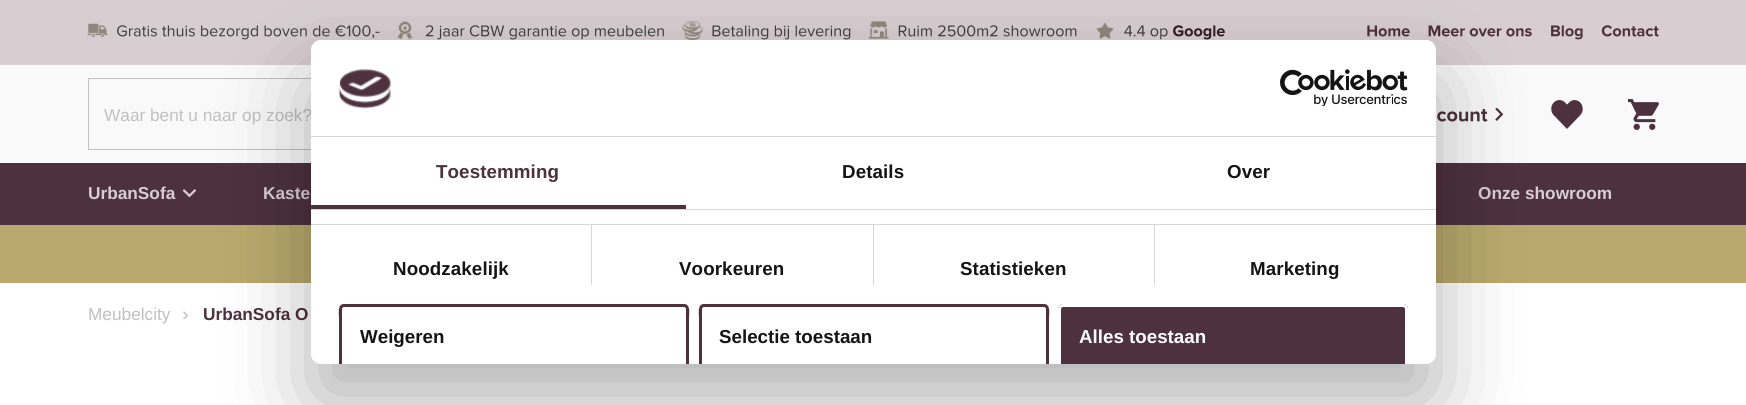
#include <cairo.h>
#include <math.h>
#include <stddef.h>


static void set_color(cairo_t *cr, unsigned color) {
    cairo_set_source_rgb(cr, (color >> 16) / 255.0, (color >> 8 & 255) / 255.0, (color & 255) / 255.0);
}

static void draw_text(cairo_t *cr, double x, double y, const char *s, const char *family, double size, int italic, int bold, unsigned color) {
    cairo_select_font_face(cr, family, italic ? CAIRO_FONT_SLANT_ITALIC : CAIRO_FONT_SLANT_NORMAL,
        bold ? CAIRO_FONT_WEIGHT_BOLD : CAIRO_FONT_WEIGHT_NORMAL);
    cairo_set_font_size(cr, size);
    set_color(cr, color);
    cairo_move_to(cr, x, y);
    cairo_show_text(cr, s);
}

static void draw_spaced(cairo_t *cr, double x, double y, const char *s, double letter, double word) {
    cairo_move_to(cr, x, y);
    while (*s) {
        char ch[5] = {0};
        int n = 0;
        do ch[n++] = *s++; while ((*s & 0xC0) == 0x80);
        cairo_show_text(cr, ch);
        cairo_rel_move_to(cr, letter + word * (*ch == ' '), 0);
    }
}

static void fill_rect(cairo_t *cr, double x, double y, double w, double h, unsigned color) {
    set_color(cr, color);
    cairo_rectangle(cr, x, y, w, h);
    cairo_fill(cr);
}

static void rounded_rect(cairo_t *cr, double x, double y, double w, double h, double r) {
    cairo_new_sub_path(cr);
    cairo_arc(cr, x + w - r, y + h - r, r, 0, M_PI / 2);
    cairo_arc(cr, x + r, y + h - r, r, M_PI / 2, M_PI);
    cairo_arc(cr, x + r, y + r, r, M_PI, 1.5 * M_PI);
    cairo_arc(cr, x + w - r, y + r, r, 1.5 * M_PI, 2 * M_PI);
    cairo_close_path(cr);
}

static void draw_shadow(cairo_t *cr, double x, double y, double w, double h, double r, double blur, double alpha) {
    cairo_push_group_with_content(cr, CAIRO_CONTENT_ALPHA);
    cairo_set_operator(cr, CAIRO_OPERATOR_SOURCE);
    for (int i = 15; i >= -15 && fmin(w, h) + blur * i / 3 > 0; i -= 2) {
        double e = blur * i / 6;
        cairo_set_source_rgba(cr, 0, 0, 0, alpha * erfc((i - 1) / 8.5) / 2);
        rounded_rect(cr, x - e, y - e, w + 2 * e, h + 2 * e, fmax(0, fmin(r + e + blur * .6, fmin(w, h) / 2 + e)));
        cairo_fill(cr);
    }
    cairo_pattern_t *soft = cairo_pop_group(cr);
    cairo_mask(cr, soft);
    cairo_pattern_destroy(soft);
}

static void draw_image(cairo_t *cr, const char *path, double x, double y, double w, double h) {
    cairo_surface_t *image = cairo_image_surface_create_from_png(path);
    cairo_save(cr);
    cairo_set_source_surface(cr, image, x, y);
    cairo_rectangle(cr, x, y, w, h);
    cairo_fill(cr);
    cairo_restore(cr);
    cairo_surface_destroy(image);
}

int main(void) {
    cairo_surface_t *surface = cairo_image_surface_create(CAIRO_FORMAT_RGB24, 1746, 405);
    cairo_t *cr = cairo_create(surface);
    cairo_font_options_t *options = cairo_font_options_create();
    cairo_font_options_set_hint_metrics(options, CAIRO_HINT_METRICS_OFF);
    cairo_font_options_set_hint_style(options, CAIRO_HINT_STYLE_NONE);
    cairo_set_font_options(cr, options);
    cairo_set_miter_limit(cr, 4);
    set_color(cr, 0xFFFFFF);
    cairo_paint(cr);
    fill_rect(cr, 0, 0, 1746, 65, 0xD8CED2);
    draw_image(cr, "assets/img1.png", 87, 23, 21, 15);
    draw_image(cr, "assets/img2.png", 117, 25, 263, 15);
    draw_image(cr, "assets/img3.png", 397, 21, 16, 19);
    draw_image(cr, "assets/img4.png", 425, 25, 239, 15);
    draw_image(cr, "assets/img5.png", 682, 21, 21, 19);
    draw_image(cr, "assets/img6.png", 712, 25, 139, 15);
    draw_image(cr, "assets/img7.png", 868, 21, 21, 18);
    draw_image(cr, "assets/img8.png", 898, 25, 179, 12);
    draw_image(cr, "assets/img9.png", 1096, 22, 18, 17);
    draw_image(cr, "assets/img10.png", 1124, 25, 44, 15);
    draw_image(cr, "assets/img11.png", 1173, 25, 52, 15);
    draw_image(cr, "assets/img12.png", 1367, 25, 43, 12);
    draw_image(cr, "assets/img13.png", 1428, 25, 104, 12);
    draw_image(cr, "assets/img14.png", 1551, 25, 32, 15);
    draw_image(cr, "assets/img15.png", 1601, 25, 58, 12);
    fill_rect(cr, 0, 65, 1746, 98, 0xF9F9F9);
    cairo_rectangle(cr, 88.5, 78.5, 312, 71);
    set_color(cr, 0xC0C0C0);
    cairo_set_line_width(cr, 1);
    cairo_stroke(cr);
    draw_text(cr, 104, 121, "Waar bent u naar op zoek?", "Liberation Sans", 17.25, 0, 0, 0xC0C0C0);
    draw_image(cr, "assets/img16.png", 1436, 109, 52, 13);
    draw_image(cr, "assets/img17.png", 1495, 108, 9, 13);
    draw_image(cr, "assets/img18.png", 1551, 100, 32, 29);
    draw_image(cr, "assets/img19.png", 1628, 99, 31, 31);
    fill_rect(cr, 0, 163, 1746, 62, 0x4D313D);
    draw_text(cr, 88, 199, "UrbanSofa", "Liberation Sans", 17.25, 0, 1, 0xD8CED2);
    draw_image(cr, "assets/img20.png", 183, 189, 13, 9);
    draw_text(cr, 263, 199, "Kaste", "Liberation Sans", 17.25, 0, 1, 0xD8CED2);
    draw_text(cr, 1478, 199, "Onze showroom", "Liberation Sans", 17.25, 0, 1, 0xD8CED2);
    fill_rect(cr, 0, 225, 1746, 58, 0xB9A96C);
    draw_text(cr, 88, 320, "Meubelcity", "Liberation Sans", 17.25, 0, 0, 0xC0C0C0);
    draw_image(cr, "assets/img21.png", 183, 311, 5, 8);
    draw_text(cr, 203, 320, "UrbanSofa O", "Liberation Sans", 17.25, 0, 1, 0x4D313D);
    set_color(cr, 0x000000);
    draw_shadow(cr, 311, 80, 1125, 324, 10, 42.5, 0.3);
    set_color(cr, 0xFFFFFF);
    rounded_rect(cr, 311, 40, 1125, 324, 10);
    cairo_fill(cr);
    fill_rect(cr, 311, 136, 1125, 1, 0xD6D6D6);
    draw_image(cr, "assets/img22.png", 338, 69, 54, 40);
    draw_image(cr, "assets/img23.png", 1280, 69, 128, 37);
    fill_rect(cr, 311, 209, 1125, 1, 0xD6D6D6);
    fill_rect(cr, 311, 205, 375, 4, 0x4D313D);
    cairo_set_font_size(cr, 18.75);
    draw_spaced(cr, 436, 178, "Toestemming", 0.1, 0);
    set_color(cr, 0x141414);
    draw_spaced(cr, 842, 178, "Details", 0.1, 0);
    draw_spaced(cr, 1227, 178, "Over", 0.1, 0);
    fill_rect(cr, 311, 224, 1125, 1, 0xD6D6D6);
    fill_rect(cr, 591, 225, 1, 60, 0xD6D6D6);
    set_color(cr, 0x141414);
    draw_spaced(cr, 393, 275, "Noodzakelijk", 0.1, 0);
    fill_rect(cr, 873, 225, 1, 60, 0xD6D6D6);
    set_color(cr, 0x141414);
    draw_spaced(cr, 679, 275, "Voorkeuren", 0.1, 0);
    fill_rect(cr, 1154, 225, 1, 60, 0xD6D6D6);
    set_color(cr, 0x141414);
    draw_spaced(cr, 960, 275, "Statistieken", 0.1, 0);
    draw_spaced(cr, 1250, 275, "Marketing", 0.1, 0);
    set_color(cr, 0x4D313D);
    cairo_new_path(cr);
    cairo_move_to(cr, 344, 304);
    cairo_curve_to(cr, 337, 304, 339, 314, 339, 318);
    cairo_line_to(cr, 339, 364);
    cairo_line_to(cr, 342, 364);
    cairo_line_to(cr, 342, 309);
    cairo_curve_to(cr, 342, 308, 343, 307, 344, 307);
    cairo_line_to(cr, 684, 307);
    cairo_curve_to(cr, 685, 307, 686, 308, 686, 309);
    cairo_line_to(cr, 686, 364);
    cairo_line_to(cr, 689, 364);
    cairo_line_to(cr, 689, 318);
    cairo_curve_to(cr, 689, 314, 691, 304, 684, 304);
    cairo_close_path(cr);
    cairo_fill(cr);
    draw_text(cr, 360, 343, "Weigeren", "Liberation Sans", 18.75, 0, 1, 0x141414);
    set_color(cr, 0x4D313D);
    cairo_new_path(cr);
    cairo_move_to(cr, 704, 304);
    cairo_curve_to(cr, 697, 304, 699, 314, 699, 318);
    cairo_line_to(cr, 699, 364);
    cairo_line_to(cr, 702, 364);
    cairo_line_to(cr, 702, 309);
    cairo_curve_to(cr, 702, 308, 703, 307, 704, 307);
    cairo_line_to(cr, 1044, 307);
    cairo_curve_to(cr, 1045, 307, 1046, 308, 1046, 309);
    cairo_line_to(cr, 1046, 364);
    cairo_line_to(cr, 1049, 364);
    cairo_line_to(cr, 1049, 318);
    cairo_curve_to(cr, 1049, 314, 1051, 304, 1044, 304);
    cairo_close_path(cr);
    cairo_fill(cr);
    draw_text(cr, 719, 343, "Selectie toestaan", "Liberation Sans", 18.75, 0, 1, 0x141414);
    cairo_save(cr);
    rounded_rect(cr, 311, 40, 1125, 324, 10);
    cairo_clip(cr);
    set_color(cr, 0x4D313D);
    rounded_rect(cr, 1058, 304, 350, 64, 5);
    cairo_fill(cr);
    cairo_restore(cr);
    set_color(cr, 0xFFFFFF);
    cairo_new_path(cr);
    cairo_move_to(cr, 1063, 304);
    cairo_curve_to(cr, 1056, 304, 1058, 314, 1058, 318);
    cairo_line_to(cr, 1058, 364);
    cairo_line_to(cr, 1061, 364);
    cairo_line_to(cr, 1061, 309);
    cairo_curve_to(cr, 1061, 308, 1062, 307, 1063, 307);
    cairo_line_to(cr, 1403, 307);
    cairo_curve_to(cr, 1404, 307, 1405, 308, 1405, 309);
    cairo_line_to(cr, 1405, 364);
    cairo_line_to(cr, 1408, 364);
    cairo_line_to(cr, 1408, 318);
    cairo_curve_to(cr, 1408, 314, 1410, 304, 1403, 304);
    cairo_close_path(cr);
    cairo_fill(cr);
    draw_text(cr, 1079, 343, "Alles toestaan", "Liberation Sans", 18.75, 0, 1, 0xFFFFFF);
    cairo_surface_write_to_png(surface, "output.png");
    cairo_font_options_destroy(options);
    cairo_destroy(cr);
    cairo_surface_destroy(surface);
    return 0;
}
